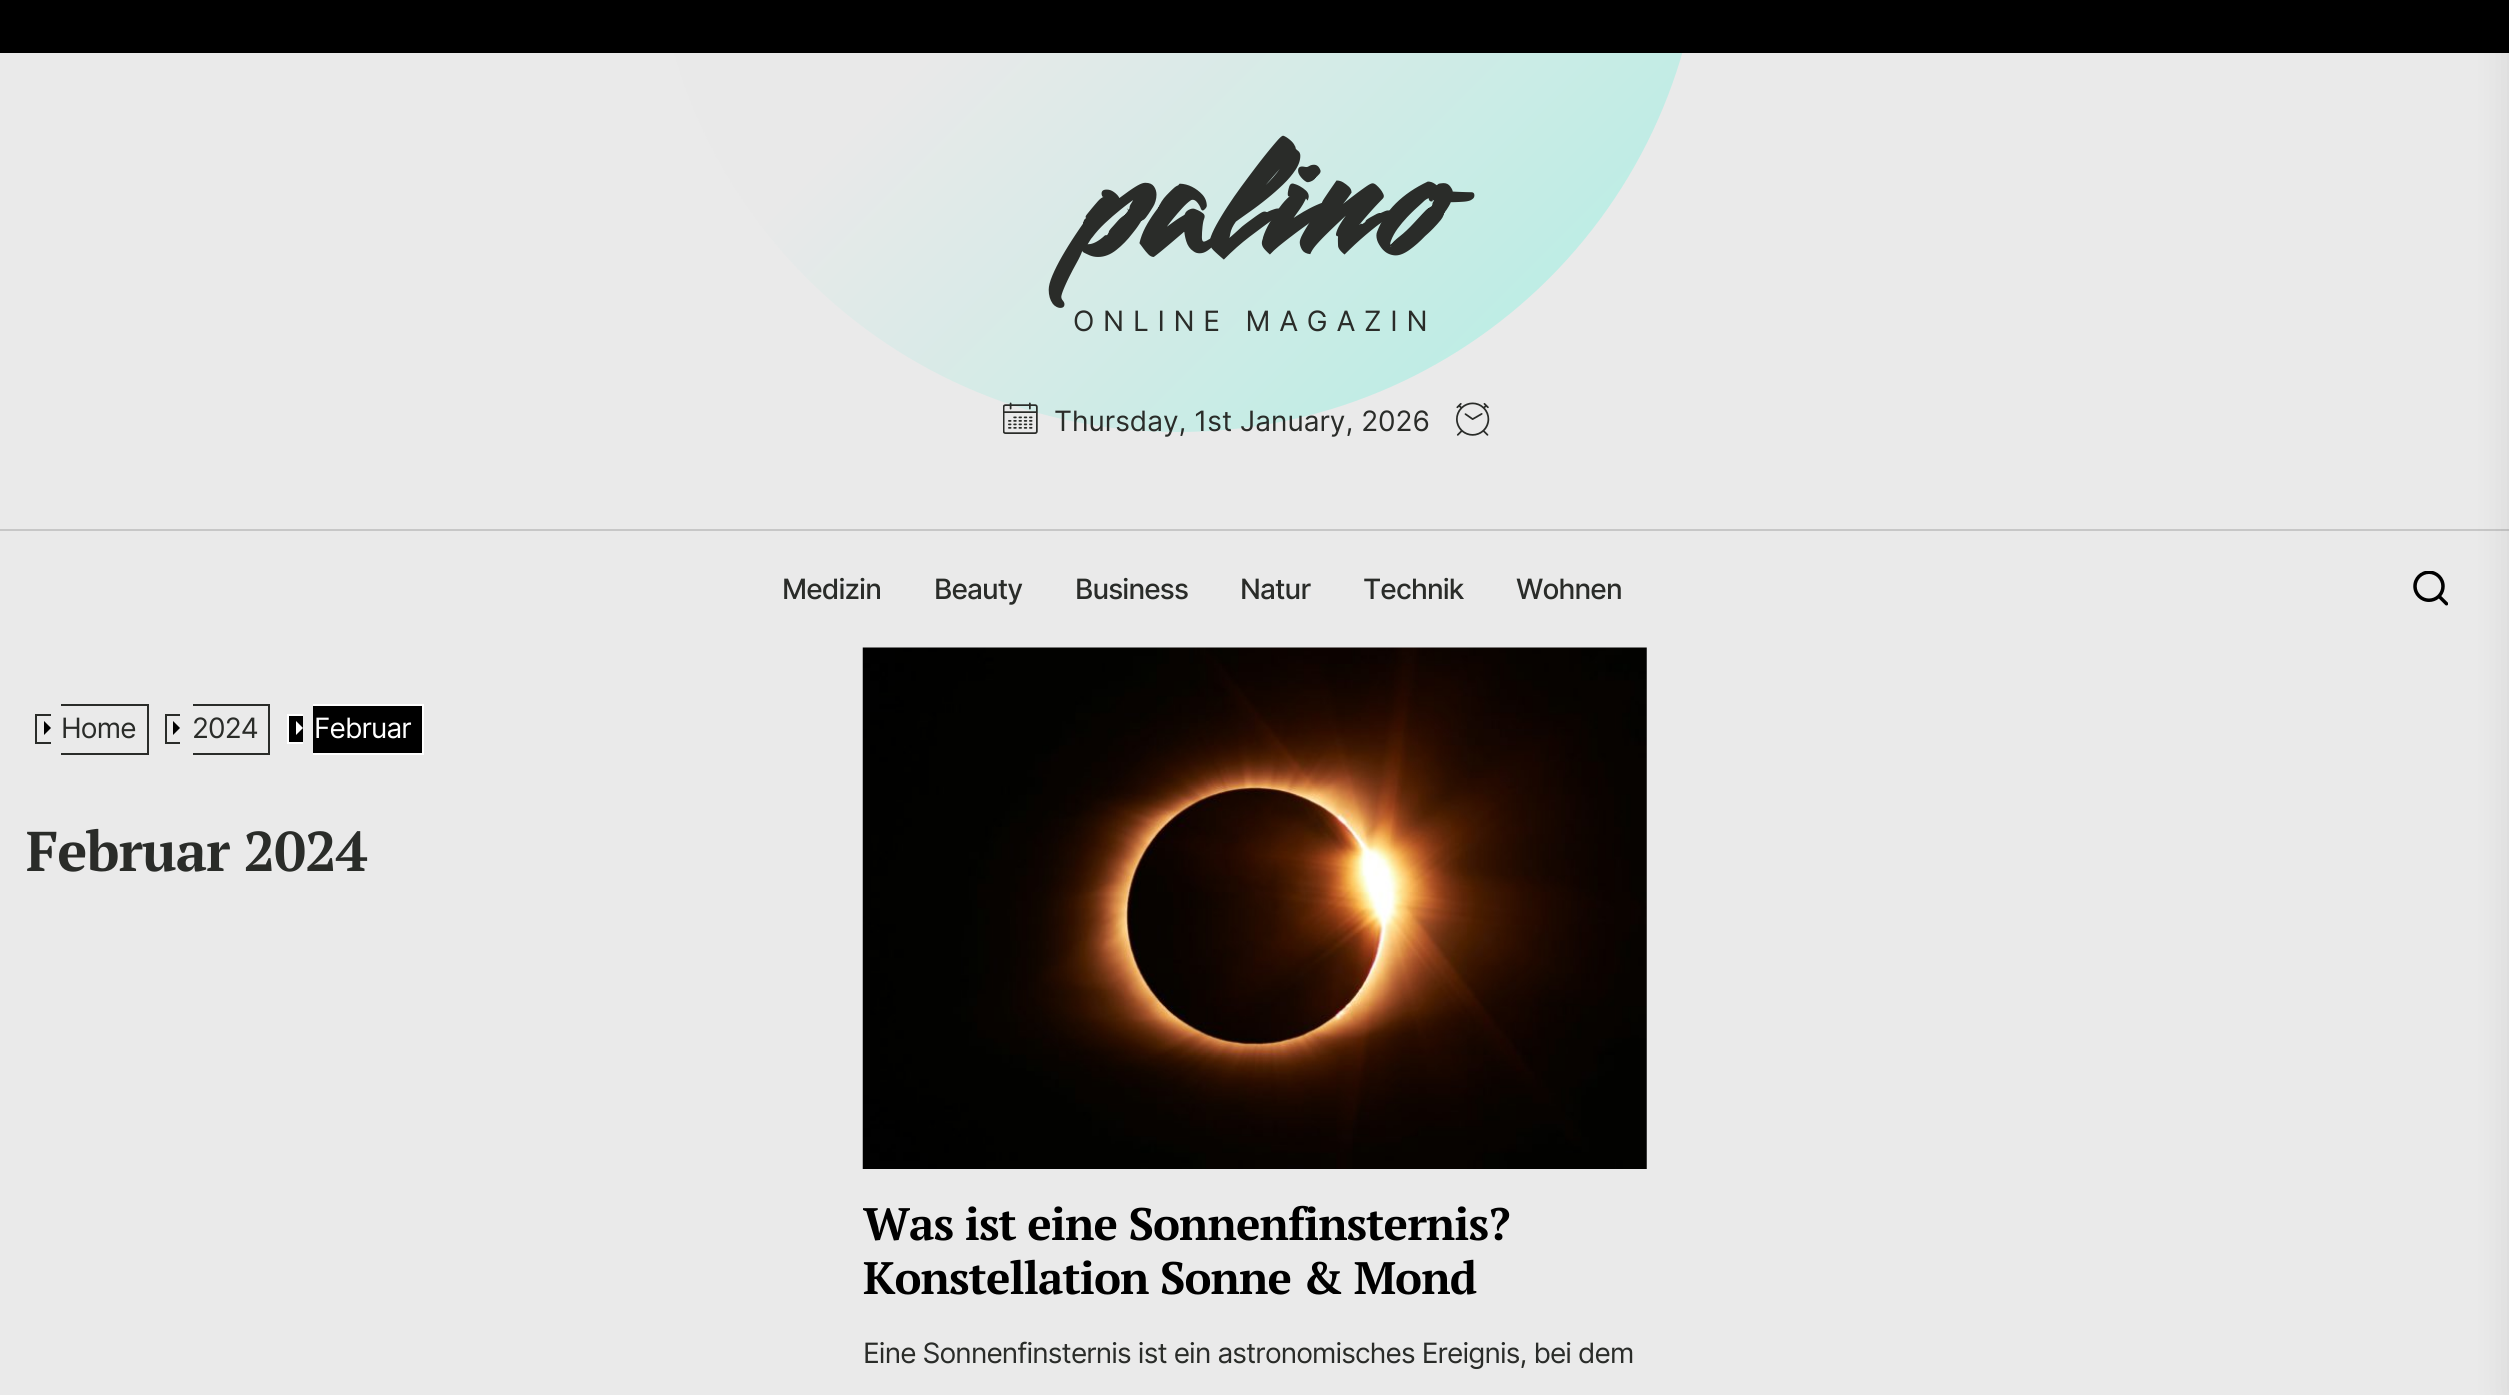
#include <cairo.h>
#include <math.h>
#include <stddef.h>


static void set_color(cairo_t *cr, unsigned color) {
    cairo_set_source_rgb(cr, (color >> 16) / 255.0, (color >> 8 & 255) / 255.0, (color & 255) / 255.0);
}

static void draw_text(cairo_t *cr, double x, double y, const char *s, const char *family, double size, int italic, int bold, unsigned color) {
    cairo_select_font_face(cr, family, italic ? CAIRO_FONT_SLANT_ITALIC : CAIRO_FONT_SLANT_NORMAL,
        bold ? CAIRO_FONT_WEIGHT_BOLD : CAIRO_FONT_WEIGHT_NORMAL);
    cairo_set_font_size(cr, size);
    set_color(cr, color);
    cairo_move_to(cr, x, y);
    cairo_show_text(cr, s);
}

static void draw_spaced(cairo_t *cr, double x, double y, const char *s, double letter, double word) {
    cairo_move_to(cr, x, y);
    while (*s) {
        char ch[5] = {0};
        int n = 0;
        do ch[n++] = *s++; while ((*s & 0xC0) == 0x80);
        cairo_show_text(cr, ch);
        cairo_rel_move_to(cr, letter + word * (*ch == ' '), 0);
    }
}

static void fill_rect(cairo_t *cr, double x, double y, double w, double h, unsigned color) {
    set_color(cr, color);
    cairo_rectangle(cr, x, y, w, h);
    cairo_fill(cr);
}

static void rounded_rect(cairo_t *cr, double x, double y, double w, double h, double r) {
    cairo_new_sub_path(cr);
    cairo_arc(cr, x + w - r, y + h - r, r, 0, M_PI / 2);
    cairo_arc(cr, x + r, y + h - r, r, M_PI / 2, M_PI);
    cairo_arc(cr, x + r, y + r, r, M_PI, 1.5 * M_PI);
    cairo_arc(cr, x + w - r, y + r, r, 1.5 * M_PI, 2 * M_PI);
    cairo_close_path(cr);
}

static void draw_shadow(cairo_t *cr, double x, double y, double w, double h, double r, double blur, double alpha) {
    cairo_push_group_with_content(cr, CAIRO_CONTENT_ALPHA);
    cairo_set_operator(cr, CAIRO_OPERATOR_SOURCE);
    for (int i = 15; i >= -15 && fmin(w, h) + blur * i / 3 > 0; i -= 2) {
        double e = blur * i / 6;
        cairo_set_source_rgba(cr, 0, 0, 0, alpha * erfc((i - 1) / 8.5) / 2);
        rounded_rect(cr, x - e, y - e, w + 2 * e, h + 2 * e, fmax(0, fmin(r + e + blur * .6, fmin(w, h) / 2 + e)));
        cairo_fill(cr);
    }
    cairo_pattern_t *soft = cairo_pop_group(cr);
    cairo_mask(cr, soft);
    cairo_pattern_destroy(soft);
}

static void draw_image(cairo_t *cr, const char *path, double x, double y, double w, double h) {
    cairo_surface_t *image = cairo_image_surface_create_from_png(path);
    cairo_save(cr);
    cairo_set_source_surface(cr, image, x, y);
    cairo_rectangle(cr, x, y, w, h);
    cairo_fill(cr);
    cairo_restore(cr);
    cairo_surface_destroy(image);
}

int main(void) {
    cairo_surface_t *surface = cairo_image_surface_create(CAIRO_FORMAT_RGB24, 2509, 1395);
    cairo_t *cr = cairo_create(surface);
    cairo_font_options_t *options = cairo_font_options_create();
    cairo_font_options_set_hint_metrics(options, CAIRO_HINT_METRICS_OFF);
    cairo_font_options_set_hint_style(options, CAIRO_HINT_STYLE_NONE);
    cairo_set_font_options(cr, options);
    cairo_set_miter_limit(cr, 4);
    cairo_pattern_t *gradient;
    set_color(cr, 0xEAEAEA);
    cairo_paint(cr);
    gradient = cairo_pattern_create_linear(653, -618, 1703, 432);
    cairo_pattern_add_color_stop_rgba(gradient, 0.45, 0.914, 0.914, 0.914, 1);
    cairo_pattern_add_color_stop_rgba(gradient, 1, 0.686, 0.933, 0.89, 1);
    cairo_set_source(cr, gradient);
    cairo_pattern_destroy(gradient);
    rounded_rect(cr, 653, -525, 1050, 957, 525);
    cairo_fill(cr);
    fill_rect(cr, 0, 0, 2509, 53, 0x000000);
    cairo_select_font_face(cr, "Smooch", CAIRO_FONT_SLANT_NORMAL, CAIRO_FONT_WEIGHT_BOLD);
    cairo_set_font_size(cr, 175);
    set_color(cr, 0x2A2C29);
    draw_spaced(cr, 1069, 254, "palino", -0.88, 0);
    cairo_select_font_face(cr, "Inter", CAIRO_FONT_SLANT_NORMAL, CAIRO_FONT_WEIGHT_NORMAL);
    cairo_set_font_size(cr, 28);
    draw_spaced(cr, 1073, 331, "ONLINE MAGAZIN", 8.75, 0);
    draw_image(cr, "assets/img1.png", 1003, 402, 35, 32);
    draw_text(cr, 1054, 431, "Thursday, 1st January, 2026", "Inter", 28, 0, 0, 0x2A2C29);
    draw_image(cr, "assets/img2.png", 1456, 402, 34, 34);
    fill_rect(cr, 0, 529, 2509, 2, 0xC7C7C7);
    cairo_select_font_face(cr, "Inter Medium", CAIRO_FONT_SLANT_NORMAL, CAIRO_FONT_WEIGHT_NORMAL);
    set_color(cr, 0x2A2C29);
    draw_spaced(cr, 782, 599, "Medizin", -0.88, 0);
    draw_spaced(cr, 934, 599, "Beauty", -0.88, 0);
    draw_spaced(cr, 1075, 599, "Business", -0.88, 0);
    draw_spaced(cr, 1240, 599, "Natur", -0.88, 0);
    draw_spaced(cr, 1363, 599, "Technik", -0.88, 0);
    draw_spaced(cr, 1516, 599, "Wohnen", -0.88, 0);
    draw_image(cr, "assets/img3.png", 2413, 571, 35, 35);
    set_color(cr, 0x000000);
    draw_shadow(cr, 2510, 0, 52, 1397, 0, 17.5, 0.1);
    fill_rect(cr, 35, 714, 16, 2, 0x2A2C29);
    fill_rect(cr, 35, 742, 16, 2, 0x2A2C29);
    fill_rect(cr, 35, 714, 2, 30, 0x2A2C29);
    fill_rect(cr, 61, 704, 88, 2, 0x2A2C29);
    fill_rect(cr, 147, 704, 2, 50, 0x2A2C29);
    fill_rect(cr, 61, 753, 88, 2, 0x2A2C29);
    set_color(cr, 0x000000);
    cairo_new_path(cr);
    cairo_move_to(cr, 44, 735);
    cairo_line_to(cr, 44, 721);
    cairo_line_to(cr, 51, 728);
    cairo_close_path(cr);
    cairo_fill(cr);
    cairo_select_font_face(cr, "Inter", CAIRO_FONT_SLANT_NORMAL, CAIRO_FONT_WEIGHT_NORMAL);
    set_color(cr, 0x2A2C29);
    draw_spaced(cr, 61, 738, "Home", -0.88, 0);
    fill_rect(cr, 165, 714, 15, 2, 0x2A2C29);
    fill_rect(cr, 165, 742, 15, 2, 0x2A2C29);
    fill_rect(cr, 165, 714, 2, 30, 0x2A2C29);
    fill_rect(cr, 193, 704, 77, 2, 0x2A2C29);
    fill_rect(cr, 268, 704, 2, 50, 0x2A2C29);
    fill_rect(cr, 193, 753, 77, 2, 0x2A2C29);
    set_color(cr, 0x000000);
    cairo_new_path(cr);
    cairo_move_to(cr, 173, 735);
    cairo_line_to(cr, 173, 721);
    cairo_line_to(cr, 180, 728);
    cairo_close_path(cr);
    cairo_fill(cr);
    set_color(cr, 0x2A2C29);
    draw_spaced(cr, 192, 738, "2024", -0.88, 0);
    fill_rect(cr, 289, 716, 14, 26, 0x000000);
    fill_rect(cr, 287, 714, 16, 2, 0xFFFFFF);
    fill_rect(cr, 287, 742, 16, 2, 0xFFFFFF);
    fill_rect(cr, 287, 714, 2, 30, 0xFFFFFF);
    fill_rect(cr, 313, 706, 109, 47, 0x000000);
    fill_rect(cr, 313, 704, 111, 2, 0xFFFFFF);
    fill_rect(cr, 422, 704, 2, 50, 0xFFFFFF);
    fill_rect(cr, 313, 753, 111, 2, 0xFFFFFF);
    cairo_new_path(cr);
    cairo_move_to(cr, 296, 735);
    cairo_line_to(cr, 296, 721);
    cairo_line_to(cr, 303, 728);
    cairo_close_path(cr);
    cairo_fill(cr);
    draw_spaced(cr, 314, 738, "Februar", -0.88, 0);
    cairo_select_font_face(cr, "PT Serif", CAIRO_FONT_SLANT_NORMAL, CAIRO_FONT_WEIGHT_BOLD);
    cairo_set_font_size(cr, 56);
    set_color(cr, 0x2A2C29);
    draw_spaced(cr, 26, 871, "Februar 2024", -0.88, 0);
    draw_image(cr, "assets/img4.png", 862, 647, 785, 522);
    cairo_set_font_size(cr, 45.5);
    set_color(cr, 0x000000);
    draw_spaced(cr, 863, 1240, "Was ist eine Sonnenfinsternis?", -0.88, 0);
    draw_spaced(cr, 863, 1294, "Konstellation Sonne & Mond", -0.88, 0);
    cairo_select_font_face(cr, "Inter", CAIRO_FONT_SLANT_NORMAL, CAIRO_FONT_WEIGHT_NORMAL);
    cairo_set_font_size(cr, 28);
    set_color(cr, 0x2A2C29);
    draw_spaced(cr, 863, 1363, "Eine Sonnenfinsternis ist ein astronomisches Ereignis, bei dem", -0.88, 0);
    cairo_surface_write_to_png(surface, "output.png");
    cairo_font_options_destroy(options);
    cairo_destroy(cr);
    cairo_surface_destroy(surface);
    return 0;
}
